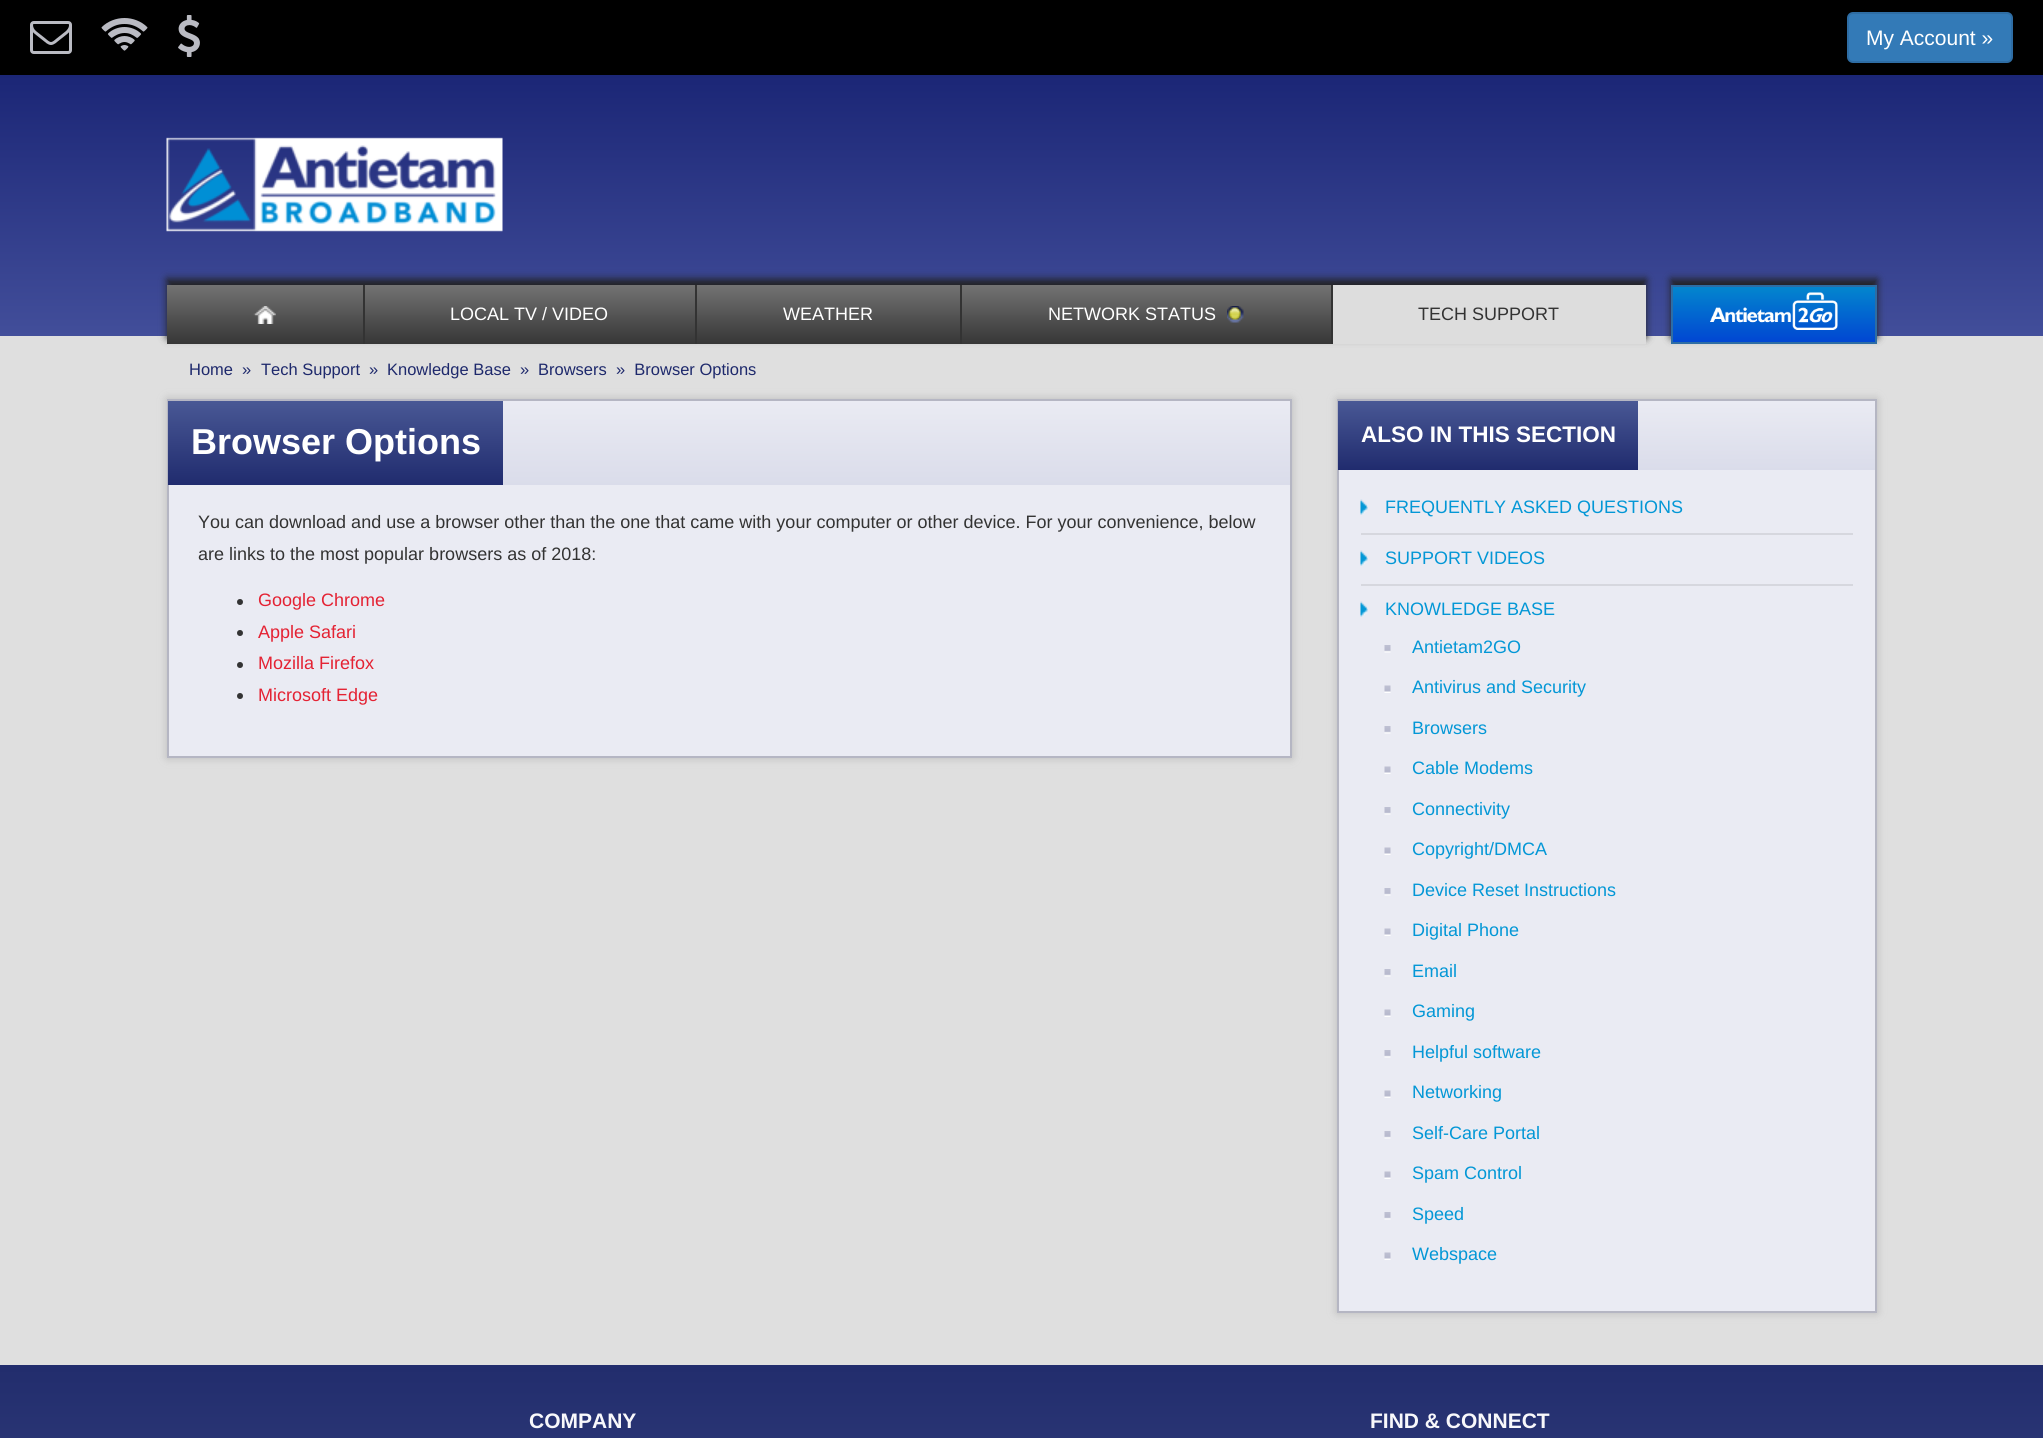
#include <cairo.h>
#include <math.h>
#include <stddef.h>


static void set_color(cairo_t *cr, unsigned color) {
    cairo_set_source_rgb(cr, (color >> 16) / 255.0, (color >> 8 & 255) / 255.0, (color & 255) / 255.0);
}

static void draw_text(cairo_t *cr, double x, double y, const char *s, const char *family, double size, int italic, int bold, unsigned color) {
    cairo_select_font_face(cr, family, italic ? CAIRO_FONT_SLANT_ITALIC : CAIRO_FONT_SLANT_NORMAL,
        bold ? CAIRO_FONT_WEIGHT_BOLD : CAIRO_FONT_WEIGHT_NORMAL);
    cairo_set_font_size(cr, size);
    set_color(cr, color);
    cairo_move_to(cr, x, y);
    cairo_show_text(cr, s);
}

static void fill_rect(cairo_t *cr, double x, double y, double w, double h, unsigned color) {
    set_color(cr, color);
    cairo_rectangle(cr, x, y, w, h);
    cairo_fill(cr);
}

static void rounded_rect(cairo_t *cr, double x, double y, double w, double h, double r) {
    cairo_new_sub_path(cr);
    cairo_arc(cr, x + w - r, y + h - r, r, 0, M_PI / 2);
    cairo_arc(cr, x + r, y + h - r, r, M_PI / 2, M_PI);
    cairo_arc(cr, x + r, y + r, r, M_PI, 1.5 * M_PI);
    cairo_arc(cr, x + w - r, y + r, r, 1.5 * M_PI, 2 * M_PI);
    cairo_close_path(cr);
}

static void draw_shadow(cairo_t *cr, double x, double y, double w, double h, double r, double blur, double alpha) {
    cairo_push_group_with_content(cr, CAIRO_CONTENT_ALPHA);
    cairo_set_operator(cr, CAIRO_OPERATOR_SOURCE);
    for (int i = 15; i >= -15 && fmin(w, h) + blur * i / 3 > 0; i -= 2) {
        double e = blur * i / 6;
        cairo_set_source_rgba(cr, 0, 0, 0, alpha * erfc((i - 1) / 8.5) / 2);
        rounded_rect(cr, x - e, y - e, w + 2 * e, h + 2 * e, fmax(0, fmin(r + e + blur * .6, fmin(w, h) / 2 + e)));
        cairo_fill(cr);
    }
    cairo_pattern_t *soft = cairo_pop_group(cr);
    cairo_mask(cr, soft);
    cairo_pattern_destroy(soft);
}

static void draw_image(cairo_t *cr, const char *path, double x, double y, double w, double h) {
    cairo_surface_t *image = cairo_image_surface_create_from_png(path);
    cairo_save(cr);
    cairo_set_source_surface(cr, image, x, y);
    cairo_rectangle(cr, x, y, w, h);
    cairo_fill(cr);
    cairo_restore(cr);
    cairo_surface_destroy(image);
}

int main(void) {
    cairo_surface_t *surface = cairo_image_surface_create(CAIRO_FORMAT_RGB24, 2043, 1438);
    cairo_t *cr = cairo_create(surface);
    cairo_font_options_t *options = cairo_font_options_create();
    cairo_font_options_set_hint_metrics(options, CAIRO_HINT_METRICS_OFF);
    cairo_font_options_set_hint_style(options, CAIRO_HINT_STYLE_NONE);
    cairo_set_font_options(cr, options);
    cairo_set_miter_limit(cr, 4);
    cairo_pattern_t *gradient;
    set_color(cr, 0xFFFFFF);
    cairo_paint(cr);
    fill_rect(cr, 0, 0, 2043, 75, 0x000000);
    draw_image(cr, "assets/img1.png", 30, 21, 42, 33);
    draw_image(cr, "assets/img2.png", 101, 18, 47, 33);
    draw_image(cr, "assets/img3.png", 178, 15, 22, 42);
    set_color(cr, 0x337AB7);
    rounded_rect(cr, 1848, 13, 164, 49, 5);
    cairo_fill_preserve(cr);
    set_color(cr, 0x2E6DA4);
    cairo_stroke(cr);
    draw_text(cr, 1866, 45, "My Account »", "Liberation Sans", 21, 0, 0, 0xFFFFFF);
    gradient = cairo_pattern_create_linear(1022, 75, 1022, 336);
    cairo_pattern_add_color_stop_rgba(gradient, 0, 0.106, 0.149, 0.463, 1);
    cairo_pattern_add_color_stop_rgba(gradient, 1, 0.259, 0.306, 0.604, 1);
    cairo_set_source(cr, gradient);
    cairo_pattern_destroy(gradient);
    cairo_rectangle(cr, 0, 75, 2043, 261);
    cairo_fill(cr);
    draw_image(cr, "assets/img4.png", 166, 137, 337, 95);
    fill_rect(cr, 0, 336, 2043, 1029, 0xDFDFDF);
    set_color(cr, 0x222222);
    draw_shadow(cr, 167, 279, 1479, 59, 0, 4, 1);
    gradient = cairo_pattern_create_linear(906, 285, 906, 344);
    cairo_pattern_add_color_stop_rgba(gradient, 0, 0.451, 0.451, 0.451, 1);
    cairo_pattern_add_color_stop_rgba(gradient, 1, 0.212, 0.212, 0.212, 1);
    cairo_set_source(cr, gradient);
    cairo_pattern_destroy(gradient);
    cairo_rectangle(cr, 167, 285, 1164, 59);
    cairo_fill(cr);
    draw_image(cr, "assets/img5.png", 253, 306, 23, 18);
    fill_rect(cr, 363, 285, 2, 59, 0x333333);
    draw_text(cr, 450, 320, "LOCAL TV / VIDEO", "Liberation Sans", 18, 0, 0, 0xFFFFFF);
    fill_rect(cr, 695, 285, 2, 59, 0x333333);
    draw_text(cr, 783, 320, "WEATHER", "Liberation Sans", 18, 0, 0, 0xFFFFFF);
    fill_rect(cr, 960, 285, 2, 59, 0x333333);
    draw_text(cr, 1048, 320, "NETWORK STATUS", "Liberation Sans", 18, 0, 0, 0xFFFFFF);
    draw_image(cr, "assets/img6.png", 1227, 306, 17, 17);
    fill_rect(cr, 1333, 285, 313, 59, 0xDDDDDD);
    fill_rect(cr, 1331, 285, 2, 59, 0x333333);
    draw_text(cr, 1418, 320, "TECH SUPPORT", "Liberation Sans", 18, 0, 0, 0x333333);
    set_color(cr, 0x222222);
    draw_shadow(cr, 1671, 279, 206, 59, 0, 4, 1);
    gradient = cairo_pattern_create_linear(1774, 287, 1774, 342);
    cairo_pattern_add_color_stop_rgba(gradient, 0, 0.012, 0.525, 0.808, 1);
    cairo_pattern_add_color_stop_rgba(gradient, 1, 0.004, 0.275, 0.824, 1);
    cairo_set_source(cr, gradient);
    cairo_pattern_destroy(gradient);
    cairo_rectangle(cr, 1673, 287, 202, 55);
    cairo_fill(cr);
    cairo_rectangle(cr, 1672, 286, 204, 57);
    set_color(cr, 0x2E6DA4);
    cairo_stroke(cr);
    draw_image(cr, "assets/img7.png", 1710, 292, 128, 38);
    draw_text(cr, 189, 375, "Home", "Liberation Sans", 16.5, 0, 0, 0x1E296C);
    draw_text(cr, 242, 375, "»", "Liberation Sans", 16.5, 0, 0, 0x1E296C);
    draw_text(cr, 261, 375, "Tech Support", "Liberation Sans", 16.5, 0, 0, 0x1E296C);
    draw_text(cr, 369, 375, "»", "Liberation Sans", 16.5, 0, 0, 0x1E296C);
    draw_text(cr, 387, 375, "Knowledge Base", "Liberation Sans", 16.5, 0, 0, 0x1E296C);
    draw_text(cr, 520, 375, "»", "Liberation Sans", 16.5, 0, 0, 0x1E296C);
    draw_text(cr, 538, 375, "Browsers", "Liberation Sans", 16.5, 0, 0, 0x1E296C);
    draw_text(cr, 616, 375, "»  Browser Options", "Liberation Sans", 16.5, 0, 0, 0x1E296C);
    set_color(cr, 0xBABABA);
    draw_shadow(cr, 167, 399, 1125, 359, 0, 4.5, 1);
    fill_rect(cr, 169, 485, 1121, 271, 0xEAEBF3);
    cairo_rectangle(cr, 168, 400, 1123, 357);
    set_color(cr, 0xB5B6C3);
    cairo_stroke(cr);
    gradient = cairo_pattern_create_linear(729, 400, 729, 485);
    cairo_pattern_add_color_stop_rgba(gradient, 0, 0.918, 0.922, 0.953, 1);
    cairo_pattern_add_color_stop_rgba(gradient, 1, 0.855, 0.863, 0.918, 1);
    cairo_set_source(cr, gradient);
    cairo_pattern_destroy(gradient);
    cairo_rectangle(cr, 503, 401, 787, 84);
    cairo_fill(cr);
    gradient = cairo_pattern_create_linear(335, 401, 335, 485);
    cairo_pattern_add_color_stop_rgba(gradient, 0, 0.286, 0.345, 0.584, 1);
    cairo_pattern_add_color_stop_rgba(gradient, 1, 0.125, 0.169, 0.431, 1);
    cairo_set_source(cr, gradient);
    cairo_pattern_destroy(gradient);
    cairo_rectangle(cr, 168, 401, 335, 84);
    cairo_fill(cr);
    draw_text(cr, 191, 454, "Browser Options", "Liberation Sans", 36, 0, 1, 0xFFFFFF);
    draw_text(cr, 198, 528, "You can download and use a browser other than the one that came with your computer or other device. For your convenience, below", "Liberation Sans", 18, 0, 0, 0x333333);
    draw_text(cr, 198, 560, "are links to the most popular browsers as of 2018:", "Liberation Sans", 18, 0, 0, 0x333333);
    cairo_new_path(cr);
    cairo_arc(cr, 240, 602, 3, 0, 2 * M_PI);
    cairo_fill(cr);
    draw_text(cr, 258, 606, "Google Chrome", "Liberation Sans", 18, 0, 0, 0xE42233);
    set_color(cr, 0x333333);
    cairo_new_path(cr);
    cairo_arc(cr, 240, 633, 3, 0, 2 * M_PI);
    cairo_fill(cr);
    draw_text(cr, 258, 638, "Apple Safari", "Liberation Sans", 18, 0, 0, 0xE42233);
    set_color(cr, 0x333333);
    cairo_new_path(cr);
    cairo_arc(cr, 240, 665, 3, 0, 2 * M_PI);
    cairo_fill(cr);
    draw_text(cr, 258, 669, "Mozilla Firefox", "Liberation Sans", 18, 0, 0, 0xE42233);
    set_color(cr, 0x333333);
    cairo_new_path(cr);
    cairo_arc(cr, 240, 696, 3, 0, 2 * M_PI);
    cairo_fill(cr);
    draw_text(cr, 258, 701, "Microsoft Edge", "Liberation Sans", 18, 0, 0, 0xE42233);
    set_color(cr, 0xBABABA);
    draw_shadow(cr, 1337, 399, 540, 914, 0, 4.5, 1);
    fill_rect(cr, 1339, 470, 536, 841, 0xEAEBF3);
    cairo_rectangle(cr, 1338, 400, 538, 912);
    set_color(cr, 0xB5B6C3);
    cairo_stroke(cr);
    gradient = cairo_pattern_create_linear(1607, 401, 1607, 470);
    cairo_pattern_add_color_stop_rgba(gradient, 0, 0.918, 0.922, 0.953, 1);
    cairo_pattern_add_color_stop_rgba(gradient, 1, 0.855, 0.863, 0.918, 1);
    cairo_set_source(cr, gradient);
    cairo_pattern_destroy(gradient);
    cairo_rectangle(cr, 1638, 401, 237, 69);
    cairo_fill(cr);
    gradient = cairo_pattern_create_linear(1488, 401, 1488, 470);
    cairo_pattern_add_color_stop_rgba(gradient, 0, 0.286, 0.345, 0.584, 1);
    cairo_pattern_add_color_stop_rgba(gradient, 1, 0.125, 0.169, 0.431, 1);
    cairo_set_source(cr, gradient);
    cairo_pattern_destroy(gradient);
    cairo_rectangle(cr, 1338, 401, 300, 69);
    cairo_fill(cr);
    draw_text(cr, 1361, 442, "ALSO IN THIS SECTION", "Liberation Sans", 22.5, 0, 1, 0xFFFFFF);
    draw_image(cr, "assets/img8.png", 1360, 499, 8, 16);
    fill_rect(cr, 1361, 533, 492, 2, 0xD6D7DE);
    draw_text(cr, 1385, 513, "FREQUENTLY ASKED QUESTIONS", "Liberation Sans", 18, 0, 0, 0x0397D6);
    draw_image(cr, "assets/img8.png", 1360, 550, 8, 16);
    fill_rect(cr, 1361, 584, 492, 2, 0xD6D7DE);
    draw_text(cr, 1385, 564, "SUPPORT VIDEOS", "Liberation Sans", 18, 0, 0, 0x0397D6);
    draw_image(cr, "assets/img8.png", 1360, 601, 8, 16);
    draw_text(cr, 1385, 615, "KNOWLEDGE BASE", "Liberation Sans", 18, 0, 0, 0x0397D6);
    draw_image(cr, "assets/img9.png", 1384, 645, 7, 8);
    draw_text(cr, 1412, 653, "Antietam2GO", "Liberation Sans", 18, 0, 0, 0x0397D6);
    draw_image(cr, "assets/img10.png", 1384, 685, 7, 8);
    draw_text(cr, 1412, 693, "Antivirus and Security", "Liberation Sans", 18, 0, 0, 0x0397D6);
    draw_image(cr, "assets/img9.png", 1384, 726, 7, 8);
    draw_text(cr, 1412, 734, "Browsers", "Liberation Sans", 18, 0, 0, 0x0397D6);
    draw_image(cr, "assets/img10.png", 1384, 766, 7, 8);
    draw_text(cr, 1412, 774, "Cable Modems", "Liberation Sans", 18, 0, 0, 0x0397D6);
    draw_image(cr, "assets/img9.png", 1384, 807, 7, 8);
    draw_text(cr, 1412, 815, "Connectivity", "Liberation Sans", 18, 0, 0, 0x0397D6);
    draw_image(cr, "assets/img10.png", 1384, 847, 7, 8);
    draw_text(cr, 1412, 855, "Copyright/DMCA", "Liberation Sans", 18, 0, 0, 0x0397D6);
    draw_image(cr, "assets/img9.png", 1384, 888, 7, 8);
    draw_text(cr, 1412, 896, "Device Reset Instructions", "Liberation Sans", 18, 0, 0, 0x0397D6);
    draw_image(cr, "assets/img10.png", 1384, 928, 7, 8);
    draw_text(cr, 1412, 936, "Digital Phone", "Liberation Sans", 18, 0, 0, 0x0397D6);
    draw_image(cr, "assets/img9.png", 1384, 969, 7, 8);
    draw_text(cr, 1412, 977, "Email", "Liberation Sans", 18, 0, 0, 0x0397D6);
    draw_image(cr, "assets/img10.png", 1384, 1009, 7, 8);
    draw_text(cr, 1412, 1017, "Gaming", "Liberation Sans", 18, 0, 0, 0x0397D6);
    draw_image(cr, "assets/img9.png", 1384, 1050, 7, 8);
    draw_text(cr, 1412, 1058, "Helpful software", "Liberation Sans", 18, 0, 0, 0x0397D6);
    draw_image(cr, "assets/img10.png", 1384, 1090, 7, 8);
    draw_text(cr, 1412, 1098, "Networking", "Liberation Sans", 18, 0, 0, 0x0397D6);
    draw_image(cr, "assets/img9.png", 1384, 1131, 7, 8);
    draw_text(cr, 1412, 1139, "Self-Care Portal", "Liberation Sans", 18, 0, 0, 0x0397D6);
    draw_image(cr, "assets/img10.png", 1384, 1171, 7, 8);
    draw_text(cr, 1412, 1179, "Spam Control", "Liberation Sans", 18, 0, 0, 0x0397D6);
    draw_image(cr, "assets/img9.png", 1384, 1212, 7, 8);
    draw_text(cr, 1412, 1220, "Speed", "Liberation Sans", 18, 0, 0, 0x0397D6);
    draw_image(cr, "assets/img10.png", 1384, 1252, 7, 8);
    draw_text(cr, 1412, 1260, "Webspace", "Liberation Sans", 18, 0, 0, 0x0397D6);
    gradient = cairo_pattern_create_linear(1022, 1365, 1022, 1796);
    cairo_pattern_add_color_stop_rgba(gradient, 0, 0.133, 0.176, 0.427, 1);
    cairo_pattern_add_color_stop_rgba(gradient, 1, 0.282, 0.337, 0.576, 1);
    cairo_set_source(cr, gradient);
    cairo_pattern_destroy(gradient);
    cairo_rectangle(cr, 0, 1365, 2043, 73);
    cairo_fill(cr);
    draw_text(cr, 529, 1428, "COMPANY", "Liberation Sans", 21, 0, 1, 0xF8F8FB);
    draw_text(cr, 1370, 1428, "FIND & CONNECT", "Liberation Sans", 21, 0, 1, 0xF8F8FB);
    cairo_surface_write_to_png(surface, "output.png");
    cairo_font_options_destroy(options);
    cairo_destroy(cr);
    cairo_surface_destroy(surface);
    return 0;
}
